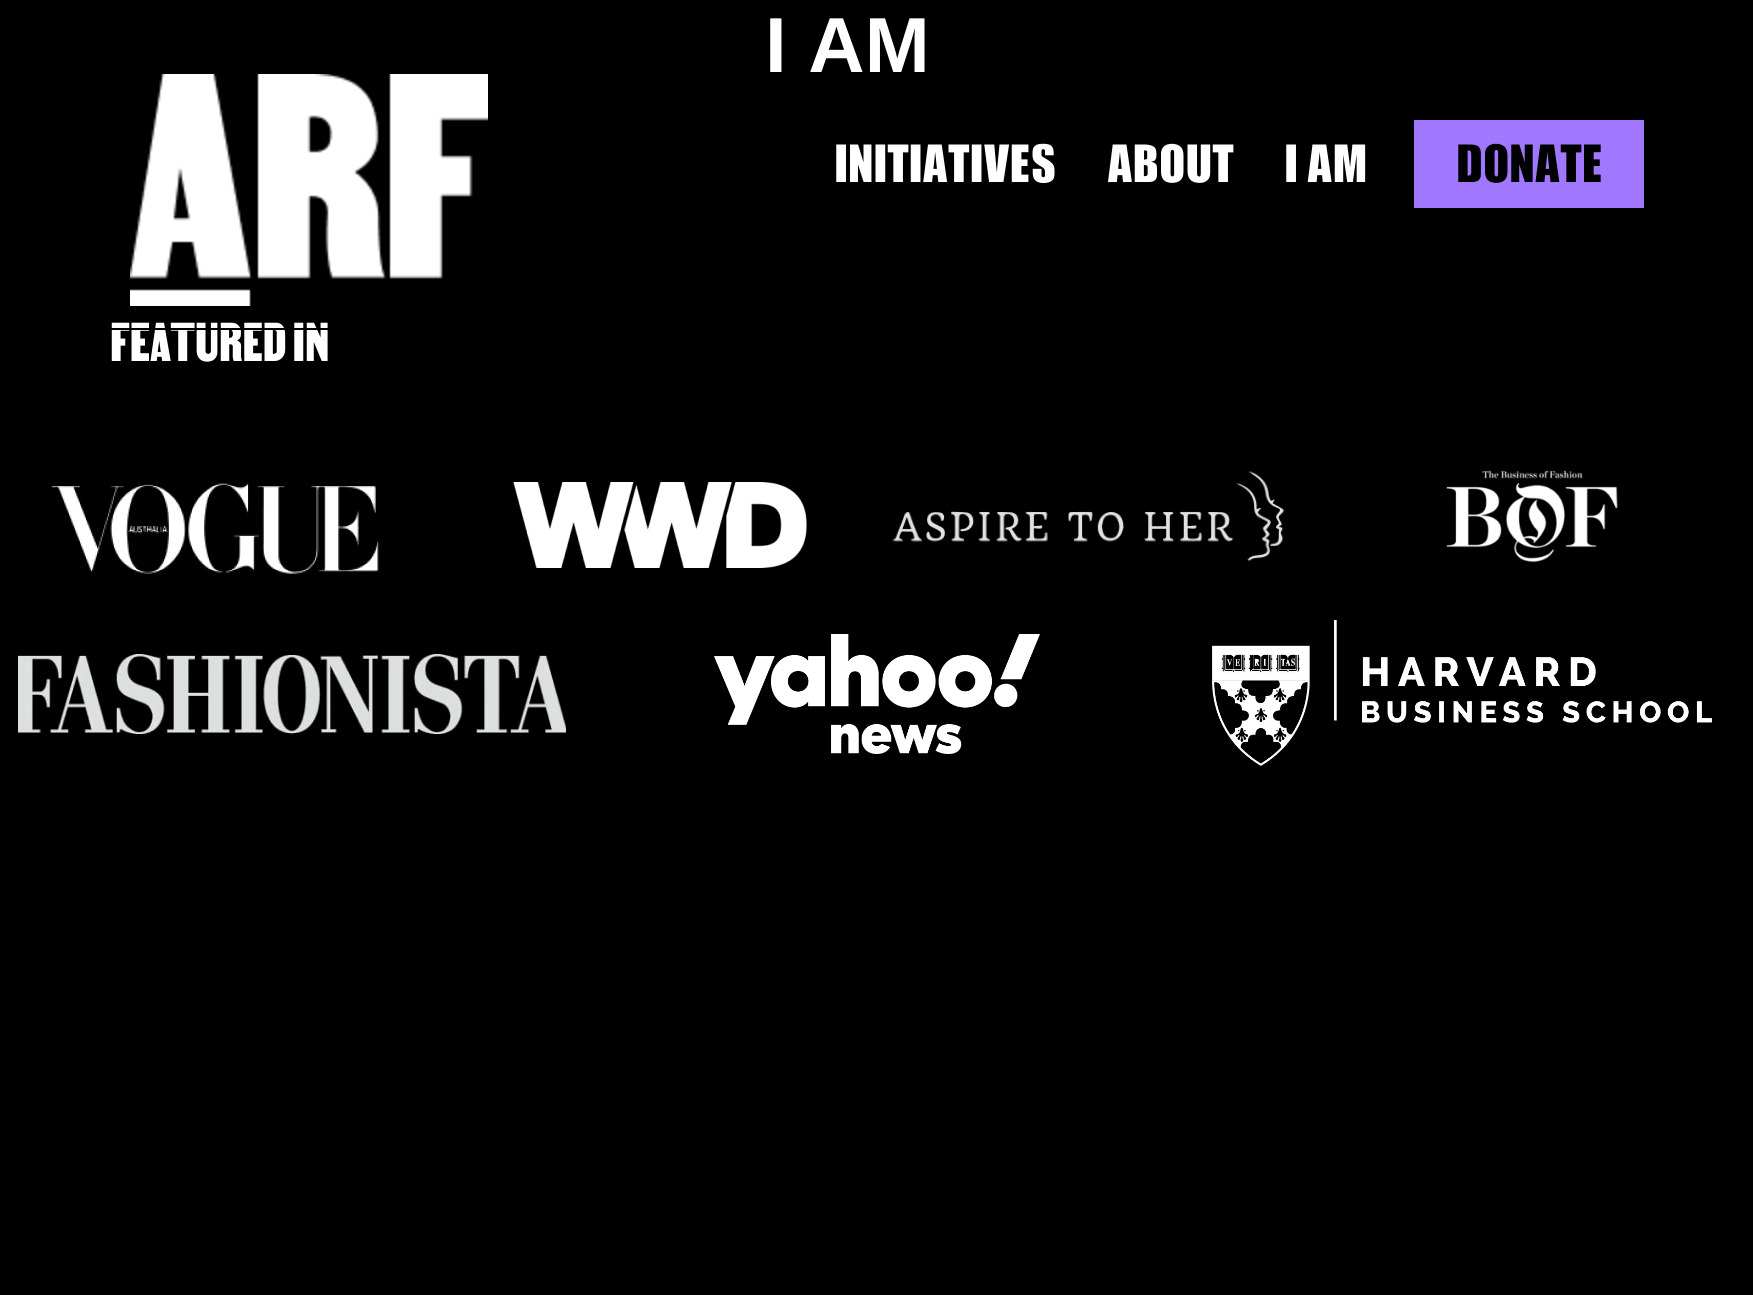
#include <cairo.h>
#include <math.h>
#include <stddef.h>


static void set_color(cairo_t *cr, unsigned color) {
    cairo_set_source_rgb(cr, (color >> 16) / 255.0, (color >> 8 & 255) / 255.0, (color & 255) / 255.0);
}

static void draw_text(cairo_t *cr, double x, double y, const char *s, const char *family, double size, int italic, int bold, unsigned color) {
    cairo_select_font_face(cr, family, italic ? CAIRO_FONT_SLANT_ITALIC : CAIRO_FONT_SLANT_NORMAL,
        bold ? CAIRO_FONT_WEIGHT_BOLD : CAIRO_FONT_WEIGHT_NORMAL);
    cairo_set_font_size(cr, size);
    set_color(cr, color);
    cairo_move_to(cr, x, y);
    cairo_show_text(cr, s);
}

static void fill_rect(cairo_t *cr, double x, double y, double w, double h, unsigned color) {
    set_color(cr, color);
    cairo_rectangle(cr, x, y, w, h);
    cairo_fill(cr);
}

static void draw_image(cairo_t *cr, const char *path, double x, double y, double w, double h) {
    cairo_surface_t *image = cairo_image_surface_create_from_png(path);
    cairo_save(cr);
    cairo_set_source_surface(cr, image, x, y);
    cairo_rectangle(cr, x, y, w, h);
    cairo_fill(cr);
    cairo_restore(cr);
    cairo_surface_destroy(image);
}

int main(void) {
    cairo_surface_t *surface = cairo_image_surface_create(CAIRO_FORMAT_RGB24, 1753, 1295);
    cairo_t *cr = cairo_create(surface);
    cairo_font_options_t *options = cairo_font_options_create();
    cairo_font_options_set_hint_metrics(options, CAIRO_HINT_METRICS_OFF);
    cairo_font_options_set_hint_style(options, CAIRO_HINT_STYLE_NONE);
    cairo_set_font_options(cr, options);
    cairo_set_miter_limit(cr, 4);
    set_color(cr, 0x000000);
    cairo_paint(cr);
    draw_text(cr, 765, 72, "I AM", "Liberation Sans", 78, 0, 1, 0xFFFFFF);
    draw_text(cr, 110, 361, "FEATURED IN", "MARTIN", 66, 0, 0, 0xFFFFFF);
    fill_rect(cr, 111, 328, 217, 2, 0x000000);
    draw_image(cr, "assets/img1.png", 130, 74, 358, 232);
    draw_text(cr, 834, 182, "INITIATIVES", "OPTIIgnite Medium", 42, 0, 0, 0xFFFFFF);
    draw_text(cr, 1107, 182, "ABOUT", "OPTIIgnite Medium", 42, 0, 0, 0xFFFFFF);
    draw_text(cr, 1284, 182, "I AM", "OPTIIgnite Medium", 42, 0, 0, 0xFFFFFF);
    fill_rect(cr, 1414, 120, 230, 88, 0xA277FF);
    draw_text(cr, 1456, 182, "DONATE", "OPTIIgnite Medium", 42, 0, 0, 0x000000);
    draw_image(cr, "assets/img2.png", 51, 480, 329, 96);
    draw_image(cr, "assets/img3.png", 513, 482, 294, 86);
    draw_image(cr, "assets/img4.png", 892, 471, 393, 91);
    draw_image(cr, "assets/img5.png", 1446, 470, 172, 92);
    draw_image(cr, "assets/img6.png", 18, 654, 548, 80);
    draw_image(cr, "assets/img7.png", 714, 634, 326, 120);
    draw_image(cr, "assets/img8.png", 1212, 620, 500, 146);
    cairo_surface_write_to_png(surface, "output.png");
    cairo_font_options_destroy(options);
    cairo_destroy(cr);
    cairo_surface_destroy(surface);
    return 0;
}
